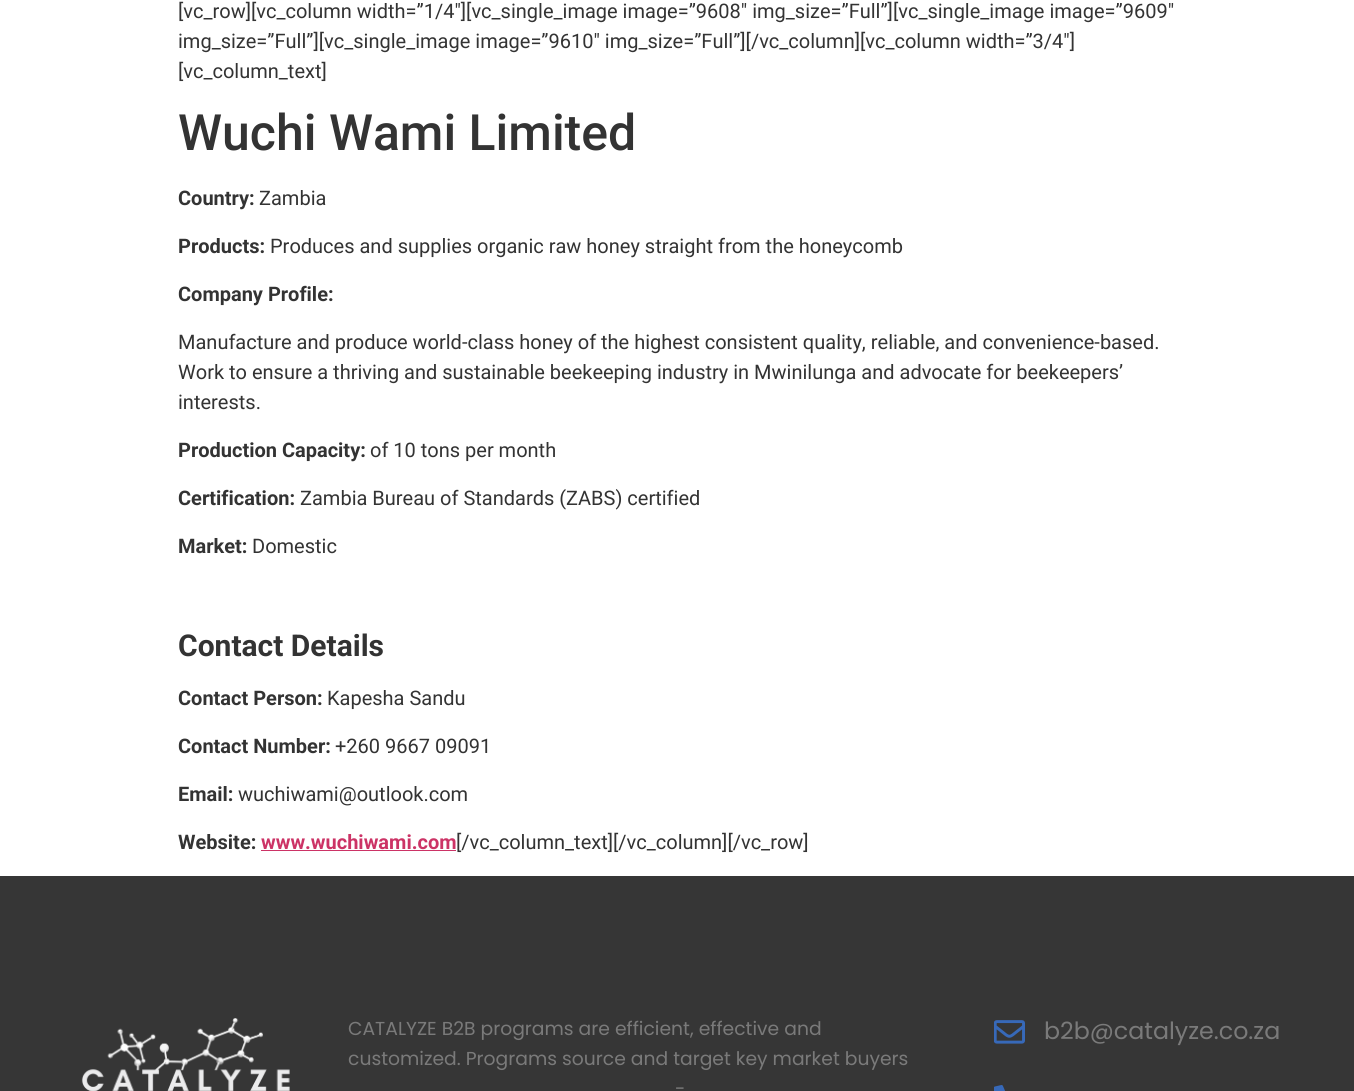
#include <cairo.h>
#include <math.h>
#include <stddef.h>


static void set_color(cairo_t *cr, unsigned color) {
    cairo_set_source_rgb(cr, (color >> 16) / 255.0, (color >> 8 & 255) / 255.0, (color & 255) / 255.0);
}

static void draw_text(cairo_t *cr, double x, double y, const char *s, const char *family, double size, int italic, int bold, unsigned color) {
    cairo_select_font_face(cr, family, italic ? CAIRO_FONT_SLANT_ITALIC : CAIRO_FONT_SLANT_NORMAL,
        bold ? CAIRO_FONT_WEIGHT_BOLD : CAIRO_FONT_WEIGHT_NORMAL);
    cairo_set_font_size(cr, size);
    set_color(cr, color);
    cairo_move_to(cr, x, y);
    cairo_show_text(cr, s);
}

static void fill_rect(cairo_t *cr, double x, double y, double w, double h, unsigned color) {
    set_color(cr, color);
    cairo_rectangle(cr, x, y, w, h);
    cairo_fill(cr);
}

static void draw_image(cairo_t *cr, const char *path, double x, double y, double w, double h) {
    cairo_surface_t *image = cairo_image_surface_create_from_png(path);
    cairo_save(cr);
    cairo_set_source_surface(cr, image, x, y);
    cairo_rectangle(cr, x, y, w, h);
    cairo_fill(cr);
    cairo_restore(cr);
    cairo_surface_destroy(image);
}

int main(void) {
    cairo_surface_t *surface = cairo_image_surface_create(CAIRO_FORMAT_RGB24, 1354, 1091);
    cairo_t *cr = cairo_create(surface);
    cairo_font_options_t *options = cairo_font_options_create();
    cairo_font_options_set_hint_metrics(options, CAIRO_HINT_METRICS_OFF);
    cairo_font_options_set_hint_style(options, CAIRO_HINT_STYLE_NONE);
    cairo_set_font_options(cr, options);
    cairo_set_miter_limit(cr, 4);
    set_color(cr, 0xFFFFFF);
    cairo_paint(cr);
    draw_text(cr, 178, 18, "[vc_row][vc_column width=”1/4″][vc_single_image image=”9608″ img_size=”Full”][vc_single_image image=”9609″", "Roboto", 20, 0, 0, 0x333333);
    draw_text(cr, 178, 48, "img_size=”Full”][vc_single_image image=”9610″ img_size=”Full”][/vc_column][vc_column width=”3/4″]", "Roboto", 20, 0, 0, 0x333333);
    draw_text(cr, 178, 78, "[vc_column_text]", "Roboto", 20, 0, 0, 0x333333);
    draw_text(cr, 178, 150, "Wuchi Wami Limited", "Roboto Medium", 50, 0, 0, 0x333333);
    draw_text(cr, 178, 205, "Country:", "Roboto", 20, 0, 1, 0x333333);
    draw_text(cr, 259, 205, "Zambia", "Roboto", 20, 0, 0, 0x333333);
    draw_text(cr, 178, 253, "Products:", "Roboto", 20, 0, 1, 0x333333);
    draw_text(cr, 270, 253, "Produces and supplies organic raw honey straight from the honeycomb", "Roboto", 20, 0, 0, 0x333333);
    draw_text(cr, 178, 301, "Company Profile:", "Roboto", 20, 0, 1, 0x333333);
    draw_text(cr, 178, 349, "Manufacture and produce world-class honey of the highest consistent quality, reliable, and convenience-based.", "Roboto", 20, 0, 0, 0x333333);
    draw_text(cr, 178, 379, "Work to ensure a thriving and sustainable beekeeping industry in Mwinilunga and advocate for beekeepers’", "Roboto", 20, 0, 0, 0x333333);
    draw_text(cr, 178, 409, "interests.", "Roboto", 20, 0, 0, 0x333333);
    draw_text(cr, 178, 457, "Production Capacity:", "Roboto", 20, 0, 1, 0x333333);
    draw_text(cr, 370, 457, "of 10 tons per month", "Roboto", 20, 0, 0, 0x333333);
    draw_text(cr, 178, 505, "Certification:", "Roboto", 20, 0, 1, 0x333333);
    draw_text(cr, 300, 505, "Zambia Bureau of Standards (ZABS) certified", "Roboto", 20, 0, 0, 0x333333);
    draw_text(cr, 178, 553, "Market:", "Roboto", 20, 0, 1, 0x333333);
    draw_text(cr, 252, 553, "Domestic", "Roboto", 20, 0, 0, 0x333333);
    draw_text(cr, 178, 656, "Contact Details", "Roboto", 30, 0, 1, 0x333333);
    draw_text(cr, 178, 705, "Contact Person:", "Roboto", 20, 0, 1, 0x333333);
    draw_text(cr, 327, 705, "Kapesha Sandu", "Roboto", 20, 0, 0, 0x333333);
    draw_text(cr, 178, 753, "Contact Number:", "Roboto", 20, 0, 1, 0x333333);
    draw_text(cr, 335, 753, "+260 9667 09091", "Roboto", 20, 0, 0, 0x333333);
    draw_text(cr, 178, 801, "Email:", "Roboto", 20, 0, 1, 0x333333);
    draw_text(cr, 238, 801, "wuchiwami@outlook.com", "Roboto", 20, 0, 0, 0x333333);
    draw_text(cr, 178, 849, "Website:", "Roboto", 20, 0, 1, 0x333333);
    draw_text(cr, 261, 849, "www.wuchiwami.com", "Roboto", 20, 0, 1, 0xCC3366);
    fill_rect(cr, 261, 850, 195, 1, 0xCC3366);
    draw_text(cr, 456, 849, "[/vc_column_text][/vc_column][/vc_row]", "Roboto", 20, 0, 0, 0x333333);
    fill_rect(cr, 0, 876, 1354, 215, 0x363636);
    draw_image(cr, "assets/img1.png", 81, 1018, 209, 73);
    draw_text(cr, 348, 1035, "CATALYZE B2B programs are efficient, effective and", "Poppins", 18.75, 0, 0, 0x7A7A7A);
    draw_text(cr, 348, 1065, "customized. Programs source and target key market buyers", "Poppins", 18.75, 0, 0, 0x7A7A7A);
    draw_text(cr, 675, 1095, "-", "Poppins", 18.75, 0, 0, 0x7A7A7A);
    draw_image(cr, "assets/img2.png", 994, 1020, 31, 24);
    draw_text(cr, 1044, 1039, "b2b@catalyze.co.za", "Poppins", 23.75, 0, 0, 0x7A7A7A);
    draw_image(cr, "assets/img3.png", 994, 1085, 11, 6);
    cairo_surface_write_to_png(surface, "output.png");
    cairo_font_options_destroy(options);
    cairo_destroy(cr);
    cairo_surface_destroy(surface);
    return 0;
}
